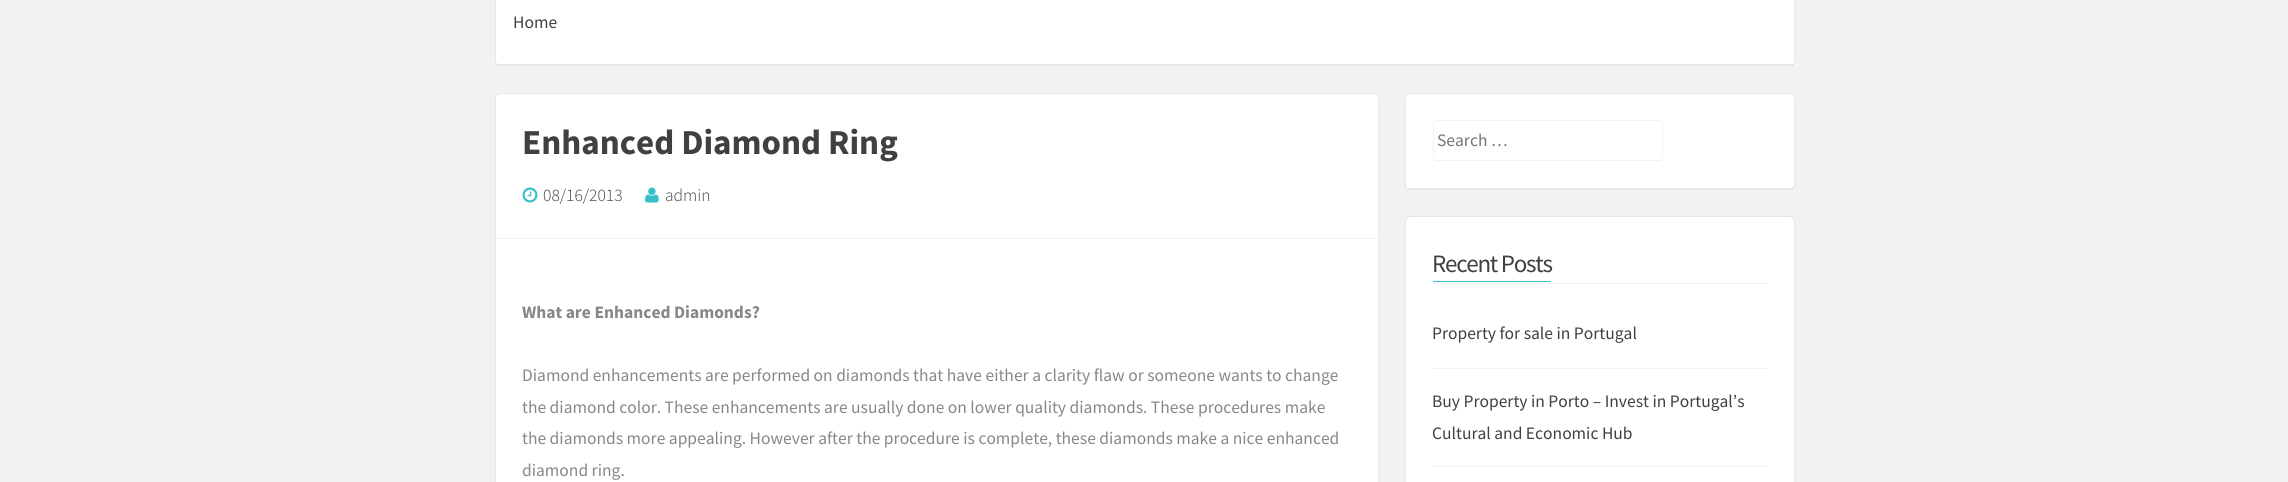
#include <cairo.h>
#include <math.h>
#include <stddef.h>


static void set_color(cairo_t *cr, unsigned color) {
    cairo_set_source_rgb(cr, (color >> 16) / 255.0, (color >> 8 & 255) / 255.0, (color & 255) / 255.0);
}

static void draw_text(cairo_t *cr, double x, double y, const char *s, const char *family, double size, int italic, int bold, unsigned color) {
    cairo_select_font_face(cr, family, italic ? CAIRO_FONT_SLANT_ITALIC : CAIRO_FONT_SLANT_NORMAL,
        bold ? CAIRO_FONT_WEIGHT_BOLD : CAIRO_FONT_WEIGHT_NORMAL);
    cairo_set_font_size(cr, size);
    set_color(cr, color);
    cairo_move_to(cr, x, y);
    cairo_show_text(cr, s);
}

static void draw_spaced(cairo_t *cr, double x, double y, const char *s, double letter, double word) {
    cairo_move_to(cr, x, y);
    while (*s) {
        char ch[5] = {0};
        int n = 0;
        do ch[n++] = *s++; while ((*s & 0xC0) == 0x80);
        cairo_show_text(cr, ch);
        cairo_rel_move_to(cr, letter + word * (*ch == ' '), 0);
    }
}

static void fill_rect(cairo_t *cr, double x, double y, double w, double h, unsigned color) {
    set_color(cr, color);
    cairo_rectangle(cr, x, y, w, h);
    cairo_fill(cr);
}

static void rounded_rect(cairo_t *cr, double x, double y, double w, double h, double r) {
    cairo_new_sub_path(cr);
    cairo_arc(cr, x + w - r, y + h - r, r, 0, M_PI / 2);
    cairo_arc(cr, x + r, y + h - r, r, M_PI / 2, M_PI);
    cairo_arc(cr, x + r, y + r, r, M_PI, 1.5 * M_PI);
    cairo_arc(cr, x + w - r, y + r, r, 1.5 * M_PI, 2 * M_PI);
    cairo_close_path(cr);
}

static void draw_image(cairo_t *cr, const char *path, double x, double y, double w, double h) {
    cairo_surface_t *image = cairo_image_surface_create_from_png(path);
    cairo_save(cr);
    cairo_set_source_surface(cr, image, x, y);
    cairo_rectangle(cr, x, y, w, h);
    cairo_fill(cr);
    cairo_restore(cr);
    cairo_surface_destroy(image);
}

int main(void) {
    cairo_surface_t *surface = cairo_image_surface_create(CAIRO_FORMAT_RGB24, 2288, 482);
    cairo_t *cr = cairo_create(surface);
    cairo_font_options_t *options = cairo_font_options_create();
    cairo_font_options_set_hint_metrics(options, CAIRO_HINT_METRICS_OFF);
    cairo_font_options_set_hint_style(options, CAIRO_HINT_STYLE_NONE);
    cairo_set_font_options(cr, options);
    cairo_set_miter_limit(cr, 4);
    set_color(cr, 0xF2F2F2);
    cairo_paint(cr);
    set_color(cr, 0xFFFFFF);
    rounded_rect(cr, 495, -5, 1300, 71, 5);
    cairo_fill(cr);
    rounded_rect(cr, 495.5, -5.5, 1299, 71, 4.5);
    cairo_set_source_rgba(cr, 0, 0, 0, 0.1);
    cairo_set_line_width(cr, 1);
    cairo_stroke(cr);
    cairo_rectangle(cr, 498, 64, 1295, 1);
    cairo_fill(cr);
    draw_text(cr, 513, 28, "Home", "Source Sans Pro", 17.5, 0, 0, 0x404040);
    set_color(cr, 0xFFFFFF);
    rounded_rect(cr, 495, 93, 884, 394, 5);
    cairo_fill(cr);
    rounded_rect(cr, 495.5, 93.5, 883, 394, 4.5);
    cairo_set_source_rgba(cr, 0, 0, 0, 0.1);
    cairo_stroke(cr);
    fill_rect(cr, 496, 238, 882, 1, 0xF2F2F2);
    draw_text(cr, 522, 154, "Enhanced Diamond Ring", "Source Sans Pro", 35, 0, 1, 0x404040);
    draw_image(cr, "assets/img1.png", 522, 187, 16, 16);
    draw_text(cr, 543, 201, "08/16/2013", "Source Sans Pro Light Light", 17.5, 0, 0, 0x404040);
    draw_image(cr, "assets/img2.png", 645, 187, 14, 16);
    draw_text(cr, 665, 201, "admin", "Source Sans Pro Light Light", 17.5, 0, 0, 0x404040);
    draw_text(cr, 522, 318, "What are Enhanced Diamonds?", "Source Sans Pro", 17.5, 0, 1, 0x878787);
    draw_text(cr, 522, 381, "Diamond enhancements are performed on diamonds that have either a clarity flaw or someone wants to change", "Source Sans Pro", 17.5, 0, 0, 0x878787);
    draw_text(cr, 522, 413, "the diamond color. These enhancements are usually done on lower quality diamonds. These procedures make", "Source Sans Pro", 17.5, 0, 0, 0x878787);
    draw_text(cr, 522, 444, "the diamonds more appealing. However after the procedure is complete, these diamonds make a nice enhanced", "Source Sans Pro", 17.5, 0, 0, 0x878787);
    draw_text(cr, 522, 476, "diamond ring.", "Source Sans Pro", 17.5, 0, 0, 0x878787);
    set_color(cr, 0xFFFFFF);
    rounded_rect(cr, 1405, 93, 390, 97, 5);
    cairo_fill(cr);
    rounded_rect(cr, 1405.5, 93.5, 389, 96, 4.5);
    cairo_set_source_rgba(cr, 0, 0, 0, 0.1);
    cairo_stroke(cr);
    cairo_rectangle(cr, 1408, 188, 385, 1);
    cairo_fill(cr);
    rounded_rect(cr, 1433.5, 120.5, 229, 40, 3.5);
    set_color(cr, 0xF2F2F2);
    cairo_stroke(cr);
    draw_text(cr, 1437, 146, "Search …", "Source Sans Pro", 17.5, 0, 0, 0x757575);
    set_color(cr, 0xFFFFFF);
    rounded_rect(cr, 1405, 216, 390, 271, 5);
    cairo_fill(cr);
    rounded_rect(cr, 1405.5, 216.5, 389, 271, 4.5);
    cairo_set_source_rgba(cr, 0, 0, 0, 0.1);
    cairo_stroke(cr);
    fill_rect(cr, 1433, 283, 335, 1, 0xF2F2F2);
    fill_rect(cr, 1433, 281, 118, 1, 0x36C1C8);
    cairo_set_font_size(cr, 25);
    set_color(cr, 0x404040);
    draw_spaced(cr, 1432, 272, "Recent Posts", -1.25, 0);
    fill_rect(cr, 1433, 368, 335, 1, 0xF2F2F2);
    draw_text(cr, 1432, 339, "Property for sale in Portugal", "Source Sans Pro", 17.5, 0, 0, 0x404040);
    fill_rect(cr, 1433, 466, 335, 1, 0xF2F2F2);
    draw_text(cr, 1432, 407, "Buy Property in Porto – Invest in Portugal’s", "Source Sans Pro", 17.5, 0, 0, 0x404040);
    draw_text(cr, 1432, 439, "Cultural and Economic Hub", "Source Sans Pro", 17.5, 0, 0, 0x404040);
    cairo_surface_write_to_png(surface, "output.png");
    cairo_font_options_destroy(options);
    cairo_destroy(cr);
    cairo_surface_destroy(surface);
    return 0;
}
